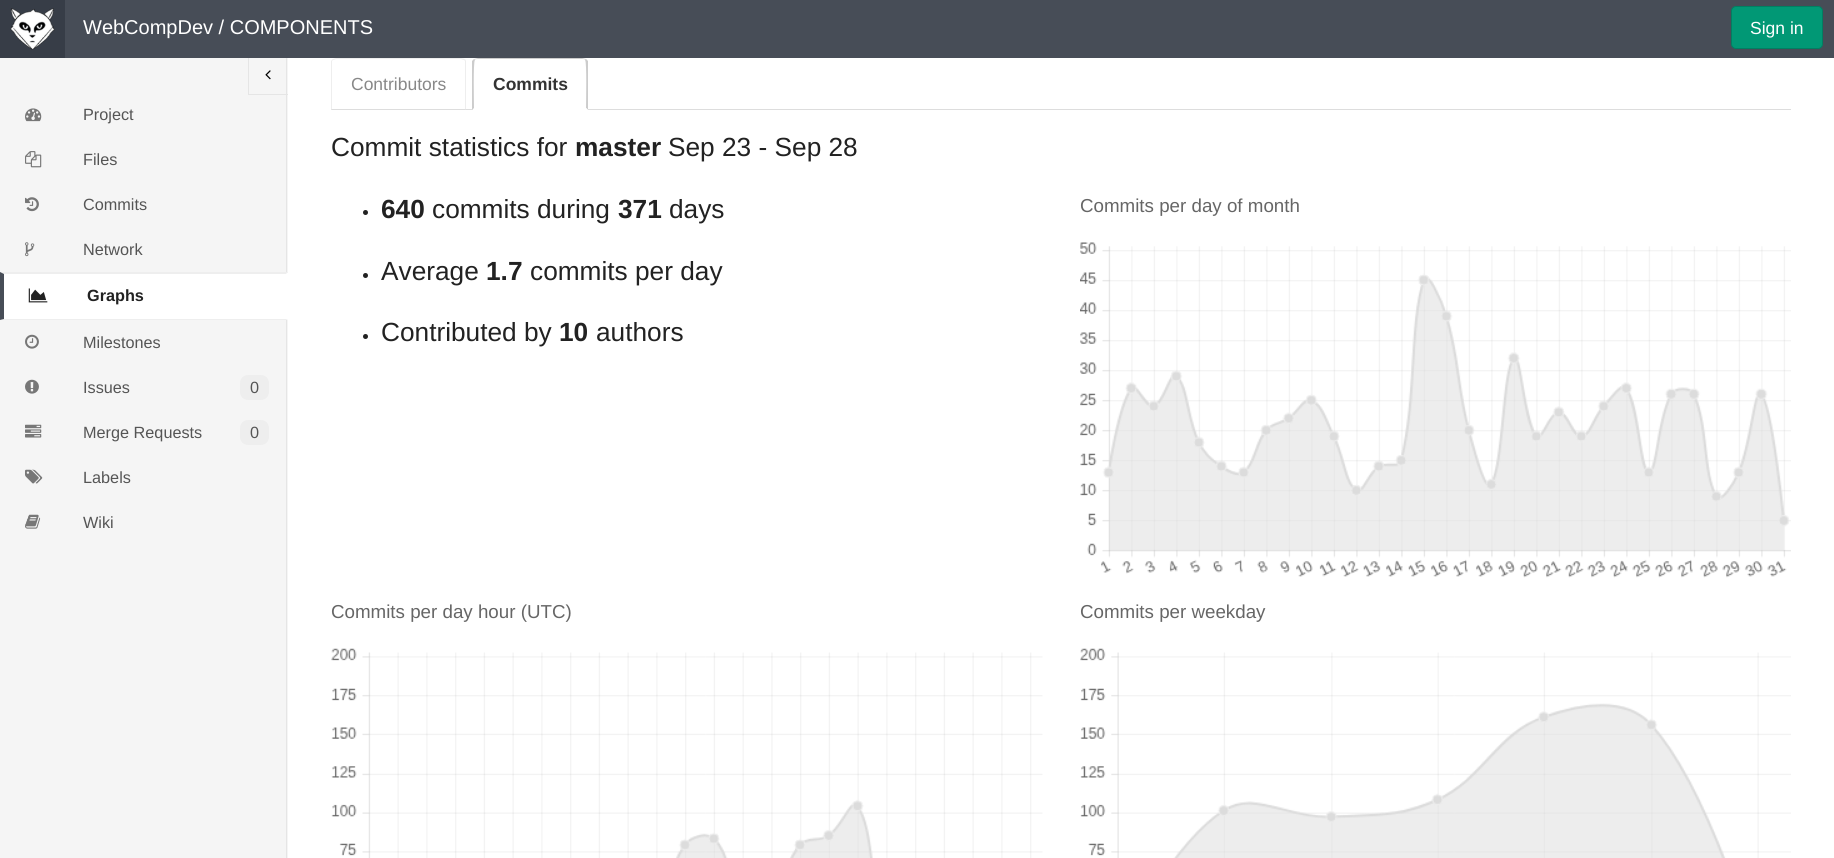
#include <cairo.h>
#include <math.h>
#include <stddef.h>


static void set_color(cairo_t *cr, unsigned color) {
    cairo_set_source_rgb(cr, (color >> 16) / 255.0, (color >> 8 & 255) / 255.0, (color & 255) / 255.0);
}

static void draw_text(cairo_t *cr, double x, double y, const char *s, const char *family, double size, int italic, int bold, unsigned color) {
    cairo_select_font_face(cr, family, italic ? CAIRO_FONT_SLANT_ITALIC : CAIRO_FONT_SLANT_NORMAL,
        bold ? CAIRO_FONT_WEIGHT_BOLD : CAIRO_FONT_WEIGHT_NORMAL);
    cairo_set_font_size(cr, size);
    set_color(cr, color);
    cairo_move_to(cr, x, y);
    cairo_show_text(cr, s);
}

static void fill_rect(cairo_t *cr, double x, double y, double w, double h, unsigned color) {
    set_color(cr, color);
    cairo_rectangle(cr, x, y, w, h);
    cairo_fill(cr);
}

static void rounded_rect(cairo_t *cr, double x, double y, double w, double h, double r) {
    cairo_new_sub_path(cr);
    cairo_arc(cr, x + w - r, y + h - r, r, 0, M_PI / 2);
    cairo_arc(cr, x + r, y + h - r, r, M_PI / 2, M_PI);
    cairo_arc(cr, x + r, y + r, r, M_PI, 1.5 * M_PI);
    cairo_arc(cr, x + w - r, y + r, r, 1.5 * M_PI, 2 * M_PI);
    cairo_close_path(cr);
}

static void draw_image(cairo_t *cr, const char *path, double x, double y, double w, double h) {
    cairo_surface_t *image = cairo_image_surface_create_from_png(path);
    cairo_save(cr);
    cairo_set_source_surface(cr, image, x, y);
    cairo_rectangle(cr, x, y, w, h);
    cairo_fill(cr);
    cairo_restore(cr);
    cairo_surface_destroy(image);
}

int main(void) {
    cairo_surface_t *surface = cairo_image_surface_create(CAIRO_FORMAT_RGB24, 1834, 858);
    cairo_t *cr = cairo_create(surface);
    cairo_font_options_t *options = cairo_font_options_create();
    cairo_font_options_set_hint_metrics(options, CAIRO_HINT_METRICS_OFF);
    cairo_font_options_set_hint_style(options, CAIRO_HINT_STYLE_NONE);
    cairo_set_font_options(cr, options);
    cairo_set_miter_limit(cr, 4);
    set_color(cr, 0xFFFFFF);
    cairo_paint(cr);
    fill_rect(cr, 65, 0, 1769, 58, 0x474D57);
    fill_rect(cr, 0, 0, 65, 58, 0x373D47);
    draw_image(cr, "assets/img1.png", 10, 8, 45, 42);
    draw_text(cr, 83, 34, "WebCompDev / COMPONENTS", "Liberation Sans", 20, 0, 0, 0xFFFFFF);
    set_color(cr, 0x019875);
    rounded_rect(cr, 1731.5, 6.5, 91, 42, 4.5);
    cairo_fill_preserve(cr);
    set_color(cr, 0x017F62);
    cairo_set_line_width(cr, 1);
    cairo_stroke(cr);
    draw_text(cr, 1750, 34, "Sign in", "Liberation Sans", 17.5, 0, 0, 0xFFFFFF);
    fill_rect(cr, 0, 58, 288, 800, 0xF5F5F5);
    fill_rect(cr, 286, 58, 1, 800, 0xE5E5E5);
    fill_rect(cr, 248, 94, 40, 1, 0xE5E5E5);
    fill_rect(cr, 248, 58, 1, 37, 0xE5E5E5);
    draw_image(cr, "assets/img2.png", 265, 70, 6, 10);
    draw_image(cr, "assets/img3.png", 25, 108, 17, 14);
    draw_text(cr, 83, 120, "Project", "Liberation Sans", 16.25, 0, 0, 0x555555);
    draw_image(cr, "assets/img4.png", 25, 151, 17, 17);
    draw_text(cr, 83, 165, "Files", "Liberation Sans", 16.25, 0, 0, 0x555555);
    draw_image(cr, "assets/img5.png", 25, 197, 14, 15);
    draw_text(cr, 83, 210, "Commits", "Liberation Sans", 16.25, 0, 0, 0x555555);
    draw_image(cr, "assets/img6.png", 25, 242, 10, 15);
    draw_text(cr, 83, 255, "Network", "Liberation Sans", 16.25, 0, 0, 0x555555);
    fill_rect(cr, 0, 273, 288, 47, 0xFFFFFF);
    set_color(cr, 0xEEEEEE);
    cairo_new_path(cr);
    cairo_move_to(cr, 0, 272);
    cairo_line_to(cr, 288, 272);
    cairo_line_to(cr, 286, 274);
    cairo_line_to(cr, 4, 274);
    cairo_close_path(cr);
    cairo_fill(cr);
    cairo_new_path(cr);
    cairo_move_to(cr, 288, 320);
    cairo_line_to(cr, 0, 320);
    cairo_line_to(cr, 4, 319);
    cairo_line_to(cr, 286, 319);
    cairo_close_path(cr);
    cairo_fill(cr);
    set_color(cr, 0x474D57);
    cairo_new_path(cr);
    cairo_move_to(cr, 0, 320);
    cairo_line_to(cr, 0, 272);
    cairo_line_to(cr, 4, 274);
    cairo_line_to(cr, 4, 319);
    cairo_close_path(cr);
    cairo_fill(cr);
    draw_image(cr, "assets/img7.png", 28, 288, 20, 15);
    draw_text(cr, 87, 301, "Graphs", "Liberation Sans", 16.25, 0, 1, 0x222222);
    draw_image(cr, "assets/img8.png", 25, 334, 14, 15);
    draw_text(cr, 83, 348, "Milestones", "Liberation Sans", 16.25, 0, 0, 0x555555);
    draw_image(cr, "assets/img9.png", 25, 379, 14, 15);
    draw_text(cr, 83, 393, "Issues", "Liberation Sans", 16.25, 0, 0, 0x555555);
    set_color(cr, 0xEEEEEE);
    rounded_rect(cr, 240, 375, 29, 25, 8);
    cairo_fill(cr);
    draw_text(cr, 250, 393, "0", "Liberation Sans", 16.25, 0, 0, 0x555555);
    draw_image(cr, "assets/img10.png", 25, 424, 17, 14);
    draw_text(cr, 83, 438, "Merge Requests", "Liberation Sans", 16.25, 0, 0, 0x555555);
    set_color(cr, 0xEEEEEE);
    rounded_rect(cr, 240, 420, 29, 25, 8);
    cairo_fill(cr);
    draw_text(cr, 250, 438, "0", "Liberation Sans", 16.25, 0, 0, 0x555555);
    draw_image(cr, "assets/img11.png", 25, 469, 18, 15);
    draw_text(cr, 83, 483, "Labels", "Liberation Sans", 16.25, 0, 0, 0x555555);
    draw_image(cr, "assets/img12.png", 25, 514, 16, 15);
    draw_text(cr, 83, 528, "Wiki", "Liberation Sans", 16.25, 0, 0, 0x555555);
    fill_rect(cr, 331, 109, 1460, 1, 0xDDDDDD);
    set_color(cr, 0xEEEEEE);
    cairo_new_path(cr);
    cairo_move_to(cr, 336, 58);
    cairo_line_to(cr, 333, 59);
    cairo_line_to(cr, 333, 60);
    cairo_line_to(cr, 336, 59);
    cairo_line_to(cr, 461, 59);
    cairo_line_to(cr, 464, 60);
    cairo_line_to(cr, 465, 59);
    cairo_line_to(cr, 461, 58);
    cairo_close_path(cr);
    cairo_fill(cr);
    cairo_new_path(cr);
    cairo_move_to(cr, 466, 110);
    cairo_line_to(cr, 466, 61);
    cairo_line_to(cr, 465, 59);
    cairo_line_to(cr, 464, 60);
    cairo_line_to(cr, 465, 61);
    cairo_line_to(cr, 465, 109);
    cairo_close_path(cr);
    cairo_fill(cr);
    set_color(cr, 0xDDDDDD);
    cairo_new_path(cr);
    cairo_move_to(cr, 331, 110);
    cairo_line_to(cr, 466, 110);
    cairo_line_to(cr, 465, 109);
    cairo_line_to(cr, 332, 109);
    cairo_close_path(cr);
    cairo_fill(cr);
    set_color(cr, 0xEEEEEE);
    cairo_new_path(cr);
    cairo_move_to(cr, 331, 110);
    cairo_line_to(cr, 332, 109);
    cairo_line_to(cr, 332, 61);
    cairo_line_to(cr, 333, 60);
    cairo_line_to(cr, 333, 59);
    cairo_line_to(cr, 331, 61);
    cairo_close_path(cr);
    cairo_fill(cr);
    draw_text(cr, 351, 90, "Contributors", "Liberation Sans", 17.5, 0, 0, 0x888888);
    set_color(cr, 0xFFFFFF);
    cairo_new_path(cr);
    cairo_move_to(cr, 478, 58);
    cairo_line_to(cr, 583, 58);
    cairo_curve_to(cr, 586, 58, 588, 60, 588, 63);
    cairo_line_to(cr, 588, 110);
    cairo_line_to(cr, 473, 110);
    cairo_line_to(cr, 473, 63);
    cairo_curve_to(cr, 473, 60, 475, 58, 478, 58);
    cairo_close_path(cr);
    cairo_fill(cr);
    set_color(cr, 0xCCCCCC);
    cairo_new_path(cr);
    cairo_move_to(cr, 478, 58);
    cairo_line_to(cr, 474, 59);
    cairo_line_to(cr, 475, 60);
    cairo_curve_to(cr, 475, 59, 476, 59, 478, 59);
    cairo_line_to(cr, 582, 59);
    cairo_curve_to(cr, 584, 59, 585, 59, 585, 60);
    cairo_line_to(cr, 586, 59);
    cairo_line_to(cr, 582, 58);
    cairo_close_path(cr);
    cairo_fill(cr);
    cairo_new_path(cr);
    cairo_move_to(cr, 588, 61);
    cairo_line_to(cr, 588, 110);
    cairo_line_to(cr, 586, 108);
    cairo_curve_to(cr, 586, 103, 587, 61, 585, 60);
    cairo_line_to(cr, 586, 59);
    cairo_close_path(cr);
    cairo_fill(cr);
    set_color(cr, 0xFFFFFF);
    cairo_new_path(cr);
    cairo_move_to(cr, 588, 110);
    cairo_line_to(cr, 586, 108);
    cairo_line_to(cr, 586, 109);
    cairo_line_to(cr, 474, 109);
    cairo_line_to(cr, 474, 108);
    cairo_line_to(cr, 472, 110);
    cairo_close_path(cr);
    cairo_fill(cr);
    set_color(cr, 0xCCCCCC);
    cairo_new_path(cr);
    cairo_move_to(cr, 472, 110);
    cairo_line_to(cr, 474, 108);
    cairo_curve_to(cr, 474, 103, 473, 61, 475, 60);
    cairo_line_to(cr, 474, 59);
    cairo_line_to(cr, 472, 61);
    cairo_close_path(cr);
    cairo_fill(cr);
    draw_text(cr, 493, 90, "Commits", "Liberation Sans", 17.5, 0, 1, 0x333333);
    draw_text(cr, 331, 156, "Commit statistics for", "Liberation Sans", 26.25, 0, 0, 0x222222);
    draw_text(cr, 575, 156, "master", "Liberation Sans", 26.25, 0, 1, 0x222222);
    draw_text(cr, 668, 156, "Sep 23 - Sep 28", "Liberation Sans", 26.25, 0, 0, 0x222222);
    cairo_new_path(cr);
    cairo_arc(cr, 365.5, 212.5, 2.5, 0, 2 * M_PI);
    cairo_fill(cr);
    draw_text(cr, 381, 218, "640", "Liberation Sans", 26.25, 0, 1, 0x222222);
    draw_text(cr, 432, 218, "commits during", "Liberation Sans", 26.25, 0, 0, 0x222222);
    draw_text(cr, 618, 218, "371", "Liberation Sans", 26.25, 0, 1, 0x222222);
    draw_text(cr, 669, 218, "days", "Liberation Sans", 26.25, 0, 0, 0x222222);
    cairo_new_path(cr);
    cairo_arc(cr, 365.5, 275.5, 2.5, 0, 2 * M_PI);
    cairo_fill(cr);
    draw_text(cr, 381, 280, "Average", "Liberation Sans", 26.25, 0, 0, 0x222222);
    draw_text(cr, 486, 280, "1.7", "Liberation Sans", 26.25, 0, 1, 0x222222);
    draw_text(cr, 530, 280, "commits per day", "Liberation Sans", 26.25, 0, 0, 0x222222);
    cairo_new_path(cr);
    cairo_arc(cr, 365.5, 336.5, 2.5, 0, 2 * M_PI);
    cairo_fill(cr);
    draw_text(cr, 381, 341, "Contributed by", "Liberation Sans", 26.25, 0, 0, 0x222222);
    draw_text(cr, 559, 341, "10", "Liberation Sans", 26.25, 0, 1, 0x222222);
    draw_text(cr, 596, 341, "authors", "Liberation Sans", 26.25, 0, 0, 0x222222);
    draw_text(cr, 1080, 212, "Commits per day of month", "Liberation Sans", 18.75, 0, 0, 0x666666);
    draw_image(cr, "assets/img13.png", 1080, 242, 711, 336);
    draw_text(cr, 331, 618, "Commits per day hour (UTC)", "Liberation Sans", 18.75, 0, 0, 0x666666);
    draw_image(cr, "assets/img14.png", 331, 648, 712, 210);
    draw_text(cr, 1080, 618, "Commits per weekday", "Liberation Sans", 18.75, 0, 0, 0x666666);
    draw_image(cr, "assets/img15.png", 1080, 648, 711, 210);
    cairo_surface_write_to_png(surface, "output.png");
    cairo_font_options_destroy(options);
    cairo_destroy(cr);
    cairo_surface_destroy(surface);
    return 0;
}
